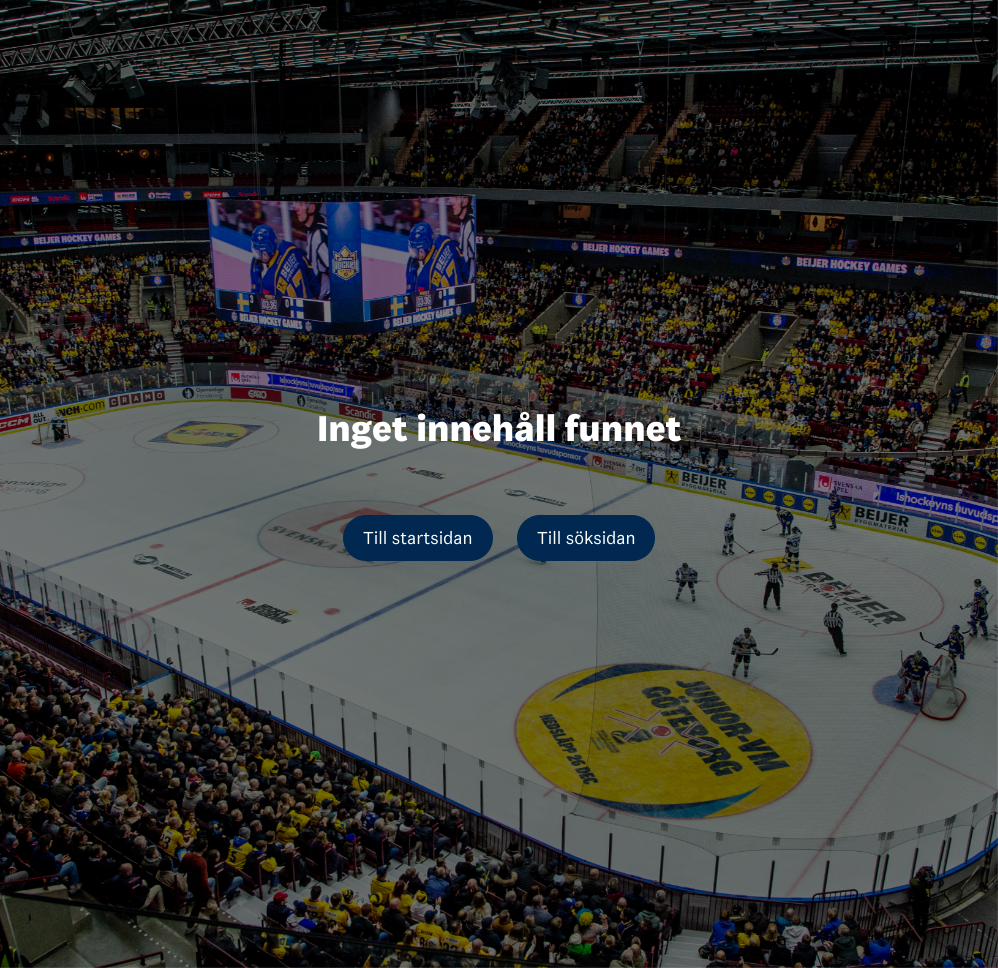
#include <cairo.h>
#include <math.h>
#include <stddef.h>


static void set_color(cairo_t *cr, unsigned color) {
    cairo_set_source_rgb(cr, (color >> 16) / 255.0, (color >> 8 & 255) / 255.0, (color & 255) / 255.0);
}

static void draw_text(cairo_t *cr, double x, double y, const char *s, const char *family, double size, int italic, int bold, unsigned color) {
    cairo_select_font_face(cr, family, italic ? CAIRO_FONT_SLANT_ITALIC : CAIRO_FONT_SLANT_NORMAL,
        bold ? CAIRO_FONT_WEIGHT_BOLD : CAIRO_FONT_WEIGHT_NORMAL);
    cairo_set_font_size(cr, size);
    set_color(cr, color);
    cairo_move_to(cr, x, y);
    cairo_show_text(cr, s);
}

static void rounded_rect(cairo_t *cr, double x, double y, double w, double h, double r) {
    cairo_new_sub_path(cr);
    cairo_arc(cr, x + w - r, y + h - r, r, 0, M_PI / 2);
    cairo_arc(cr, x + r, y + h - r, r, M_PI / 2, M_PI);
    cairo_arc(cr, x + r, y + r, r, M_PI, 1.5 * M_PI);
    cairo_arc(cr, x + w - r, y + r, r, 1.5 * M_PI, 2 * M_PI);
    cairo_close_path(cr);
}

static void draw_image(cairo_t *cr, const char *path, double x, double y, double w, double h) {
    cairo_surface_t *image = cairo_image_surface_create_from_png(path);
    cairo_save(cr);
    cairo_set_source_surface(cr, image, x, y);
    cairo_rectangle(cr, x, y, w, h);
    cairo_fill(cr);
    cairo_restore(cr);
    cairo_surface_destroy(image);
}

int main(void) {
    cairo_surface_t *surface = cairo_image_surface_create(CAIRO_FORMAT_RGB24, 998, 968);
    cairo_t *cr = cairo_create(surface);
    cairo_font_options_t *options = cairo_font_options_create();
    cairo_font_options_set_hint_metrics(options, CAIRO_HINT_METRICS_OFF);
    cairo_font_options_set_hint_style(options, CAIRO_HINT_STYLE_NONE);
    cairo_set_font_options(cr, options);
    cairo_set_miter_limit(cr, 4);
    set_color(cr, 0xFFFFFF);
    cairo_paint(cr);
    draw_image(cr, "assets/img1.png", 0, 0, 998, 968);
    draw_text(cr, 317, 441, "Inget innehåll funnet", "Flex", 37, 0, 1, 0xFFFFFF);
    set_color(cr, 0x002850);
    rounded_rect(cr, 343, 515, 150, 46, 23);
    cairo_fill(cr);
    draw_text(cr, 363, 544, "Till startsidan", "Flex", 18, 0, 0, 0xFFFFFF);
    set_color(cr, 0x002850);
    rounded_rect(cr, 517, 515, 138, 46, 23);
    cairo_fill(cr);
    draw_text(cr, 537, 544, "Till söksidan", "Flex", 18, 0, 0, 0xFFFFFF);
    cairo_surface_write_to_png(surface, "output.png");
    cairo_font_options_destroy(options);
    cairo_destroy(cr);
    cairo_surface_destroy(surface);
    return 0;
}
